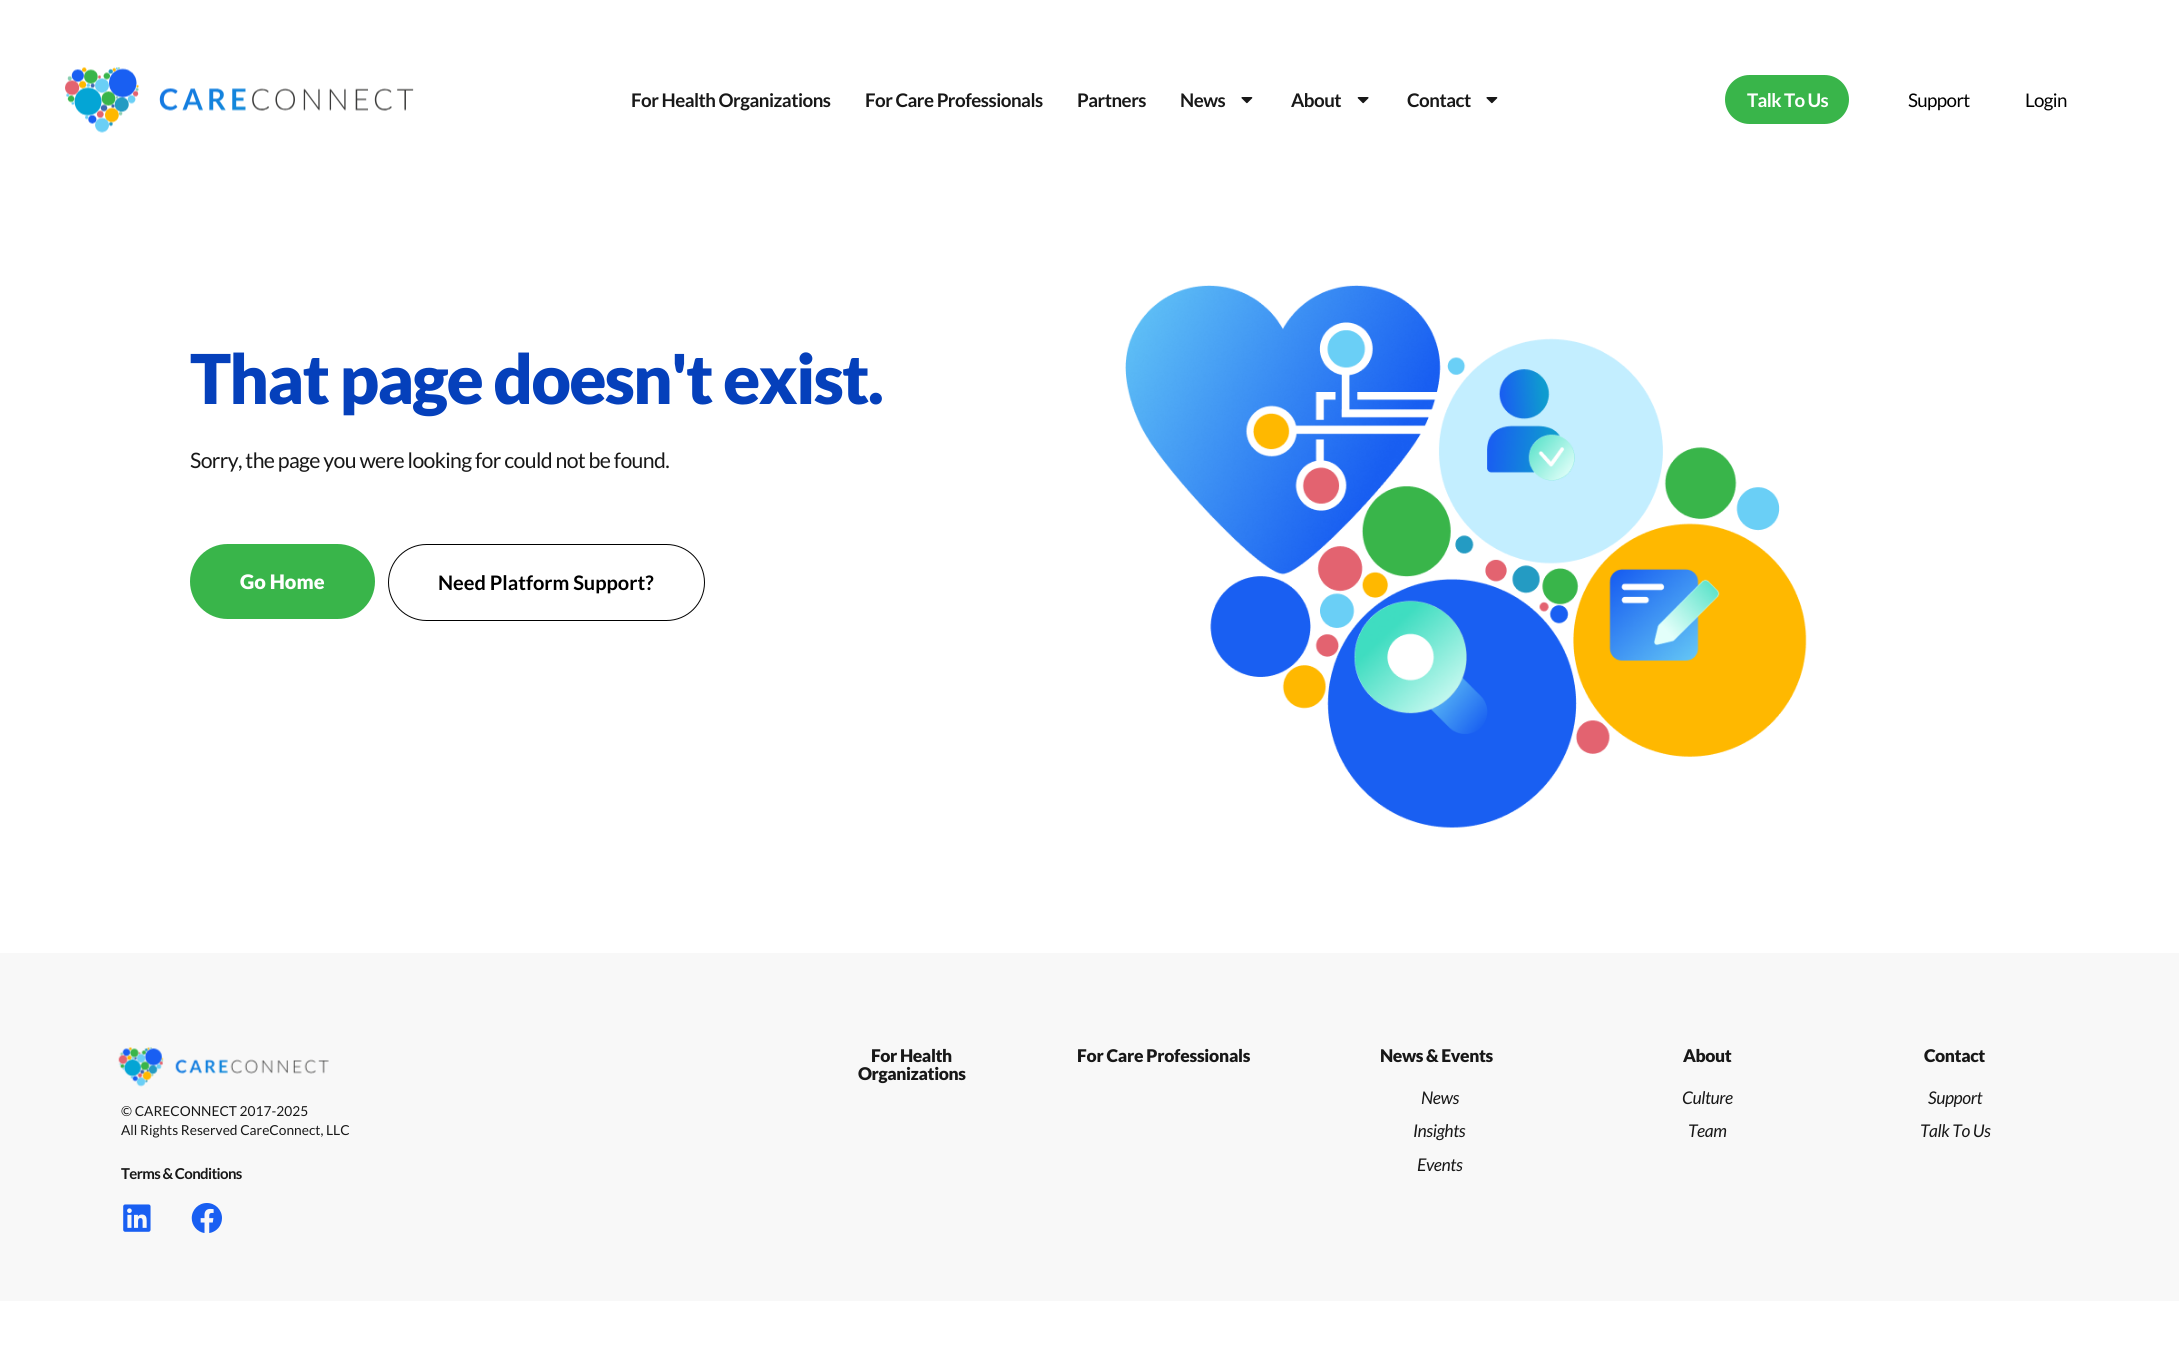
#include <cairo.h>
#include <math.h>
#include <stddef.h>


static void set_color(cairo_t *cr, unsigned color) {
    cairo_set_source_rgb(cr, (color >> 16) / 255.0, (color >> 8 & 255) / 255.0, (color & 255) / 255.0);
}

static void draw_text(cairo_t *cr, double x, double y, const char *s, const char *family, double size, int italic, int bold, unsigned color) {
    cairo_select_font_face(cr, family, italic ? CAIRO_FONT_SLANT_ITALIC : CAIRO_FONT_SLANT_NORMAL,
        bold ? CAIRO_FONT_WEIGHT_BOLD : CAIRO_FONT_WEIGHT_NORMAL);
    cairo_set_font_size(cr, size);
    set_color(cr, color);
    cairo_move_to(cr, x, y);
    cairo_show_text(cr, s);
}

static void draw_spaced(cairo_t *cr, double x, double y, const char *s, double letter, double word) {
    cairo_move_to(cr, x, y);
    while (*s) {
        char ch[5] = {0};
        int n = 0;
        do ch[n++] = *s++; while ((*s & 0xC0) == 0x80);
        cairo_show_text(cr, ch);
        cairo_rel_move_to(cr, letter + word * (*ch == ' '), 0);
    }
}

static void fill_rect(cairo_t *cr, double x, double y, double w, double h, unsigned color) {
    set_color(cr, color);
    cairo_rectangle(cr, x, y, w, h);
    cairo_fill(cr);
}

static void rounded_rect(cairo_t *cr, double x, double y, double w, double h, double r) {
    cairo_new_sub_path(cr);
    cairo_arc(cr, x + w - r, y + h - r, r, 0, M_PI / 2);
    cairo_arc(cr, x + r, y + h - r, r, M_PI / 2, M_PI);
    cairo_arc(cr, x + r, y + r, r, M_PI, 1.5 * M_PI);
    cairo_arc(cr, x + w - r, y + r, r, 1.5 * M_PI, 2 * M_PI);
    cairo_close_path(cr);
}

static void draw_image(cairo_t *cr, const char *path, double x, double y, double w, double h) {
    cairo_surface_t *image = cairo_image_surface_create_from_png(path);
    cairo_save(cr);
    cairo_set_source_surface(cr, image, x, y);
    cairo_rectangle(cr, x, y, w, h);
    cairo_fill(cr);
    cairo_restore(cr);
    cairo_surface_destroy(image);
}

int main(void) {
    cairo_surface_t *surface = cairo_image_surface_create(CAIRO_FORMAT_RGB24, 2179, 1357);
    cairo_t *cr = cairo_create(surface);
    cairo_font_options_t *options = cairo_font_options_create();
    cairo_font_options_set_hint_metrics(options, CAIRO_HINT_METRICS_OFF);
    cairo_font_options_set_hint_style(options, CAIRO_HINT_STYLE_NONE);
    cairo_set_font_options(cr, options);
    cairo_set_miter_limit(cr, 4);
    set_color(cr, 0xFFFFFF);
    cairo_paint(cr);
    draw_image(cr, "assets/img1.png", 65, 67, 349, 66);
    cairo_select_font_face(cr, "Lato", CAIRO_FONT_SLANT_NORMAL, CAIRO_FONT_WEIGHT_BOLD);
    cairo_set_font_size(cr, 18.75);
    set_color(cr, 0x181818);
    draw_spaced(cr, 631, 107, "For Health Organizations", -0.5, 0);
    draw_spaced(cr, 865, 107, "For Care Professionals", -0.5, 0);
    draw_spaced(cr, 1077, 107, "Partners", -0.5, 0);
    draw_spaced(cr, 1180, 107, "News", -0.5, 0);
    draw_image(cr, "assets/img2.png", 1241, 97, 12, 7);
    draw_spaced(cr, 1291, 107, "About", -0.5, 0);
    draw_image(cr, "assets/img3.png", 1357, 97, 12, 7);
    draw_spaced(cr, 1407, 107, "Contact", -0.5, 0);
    draw_image(cr, "assets/img2.png", 1486, 97, 12, 7);
    set_color(cr, 0x39B54A);
    rounded_rect(cr, 1725, 75, 124, 49, 24.5);
    cairo_fill(cr);
    set_color(cr, 0xFFFFFF);
    draw_spaced(cr, 1747, 107, "Talk To Us", -0.62, 0);
    cairo_select_font_face(cr, "Lato", CAIRO_FONT_SLANT_NORMAL, CAIRO_FONT_WEIGHT_NORMAL);
    set_color(cr, 0x000000);
    draw_spaced(cr, 1908, 107, "Support", -0.62, 0);
    draw_spaced(cr, 2025, 107, "Login", -0.62, 0);
    cairo_select_font_face(cr, "Lato Black", CAIRO_FONT_SLANT_NORMAL, CAIRO_FONT_WEIGHT_NORMAL);
    cairo_set_font_size(cr, 68.75);
    set_color(cr, 0x0540BB);
    draw_spaced(cr, 190, 404, "That page doesn't exist.", -1.9, 0);
    cairo_select_font_face(cr, "Lato", CAIRO_FONT_SLANT_NORMAL, CAIRO_FONT_WEIGHT_NORMAL);
    cairo_set_font_size(cr, 21.25);
    set_color(cr, 0x181818);
    draw_spaced(cr, 190, 468, "Sorry, the page you were looking for could not be found.", -0.62, 0);
    set_color(cr, 0x39B54A);
    rounded_rect(cr, 190, 544, 185, 75, 37.5);
    cairo_fill(cr);
    draw_text(cr, 240, 589, "Go Home", "Lato Black", 20, 0, 0, 0xFFFFFF);
    rounded_rect(cr, 388.5, 544.5, 316, 76, 38);
    set_color(cr, 0x000000);
    cairo_set_line_width(cr, 1);
    cairo_stroke(cr);
    draw_text(cr, 438, 590, "Need Platform Support?", "Lato", 20, 0, 1, 0x000000);
    draw_image(cr, "assets/img4.png", 1125, 285, 682, 543);
    fill_rect(cr, 0, 953, 2179, 348, 0xF8F8F8);
    draw_image(cr, "assets/img5.png", 118, 1047, 211, 40);
    draw_text(cr, 121, 1116, "© CARECONNECT 2017-2025", "Lato", 13.75, 0, 0, 0x181818);
    draw_text(cr, 121, 1135, "All Rights Reserved CareConnect, LLC", "Lato", 13.75, 0, 0, 0x181818);
    cairo_select_font_face(cr, "Lato", CAIRO_FONT_SLANT_NORMAL, CAIRO_FONT_WEIGHT_BOLD);
    cairo_set_font_size(cr, 15);
    draw_spaced(cr, 121, 1179, "Terms & Conditions", -0.62, 0);
    draw_image(cr, "assets/img6.png", 123, 1204, 28, 28);
    draw_image(cr, "assets/img7.png", 191, 1203, 31, 30);
    cairo_select_font_face(cr, "Lato Black", CAIRO_FONT_SLANT_NORMAL, CAIRO_FONT_WEIGHT_NORMAL);
    cairo_set_font_size(cr, 17.5);
    draw_spaced(cr, 871, 1062, "For Health", -0.4, 0);
    draw_spaced(cr, 858, 1080, "Organizations", -0.4, 0);
    draw_spaced(cr, 1077, 1062, "For Care Professionals", -0.25, 0);
    draw_spaced(cr, 1380, 1062, "News & Events", -0.4, 0);
    cairo_select_font_face(cr, "Lato", CAIRO_FONT_SLANT_ITALIC, CAIRO_FONT_WEIGHT_NORMAL);
    draw_spaced(cr, 1421, 1104, "News", -0.4, 0);
    draw_spaced(cr, 1413, 1137, "Insights", -0.4, 0);
    draw_spaced(cr, 1417, 1171, "Events", -0.4, 0);
    cairo_select_font_face(cr, "Lato Black", CAIRO_FONT_SLANT_NORMAL, CAIRO_FONT_WEIGHT_NORMAL);
    draw_spaced(cr, 1683, 1062, "About", -0.4, 0);
    cairo_select_font_face(cr, "Lato", CAIRO_FONT_SLANT_ITALIC, CAIRO_FONT_WEIGHT_NORMAL);
    draw_spaced(cr, 1682, 1104, "Culture", -0.4, 0);
    draw_spaced(cr, 1688, 1137, "Team", -0.4, 0);
    cairo_select_font_face(cr, "Lato Black", CAIRO_FONT_SLANT_NORMAL, CAIRO_FONT_WEIGHT_NORMAL);
    draw_spaced(cr, 1924, 1062, "Contact", -0.4, 0);
    cairo_select_font_face(cr, "Lato", CAIRO_FONT_SLANT_ITALIC, CAIRO_FONT_WEIGHT_NORMAL);
    draw_spaced(cr, 1928, 1104, "Support", -0.4, 0);
    draw_spaced(cr, 1920, 1137, "Talk To Us", -0.4, 0);
    cairo_surface_write_to_png(surface, "output.png");
    cairo_font_options_destroy(options);
    cairo_destroy(cr);
    cairo_surface_destroy(surface);
    return 0;
}
